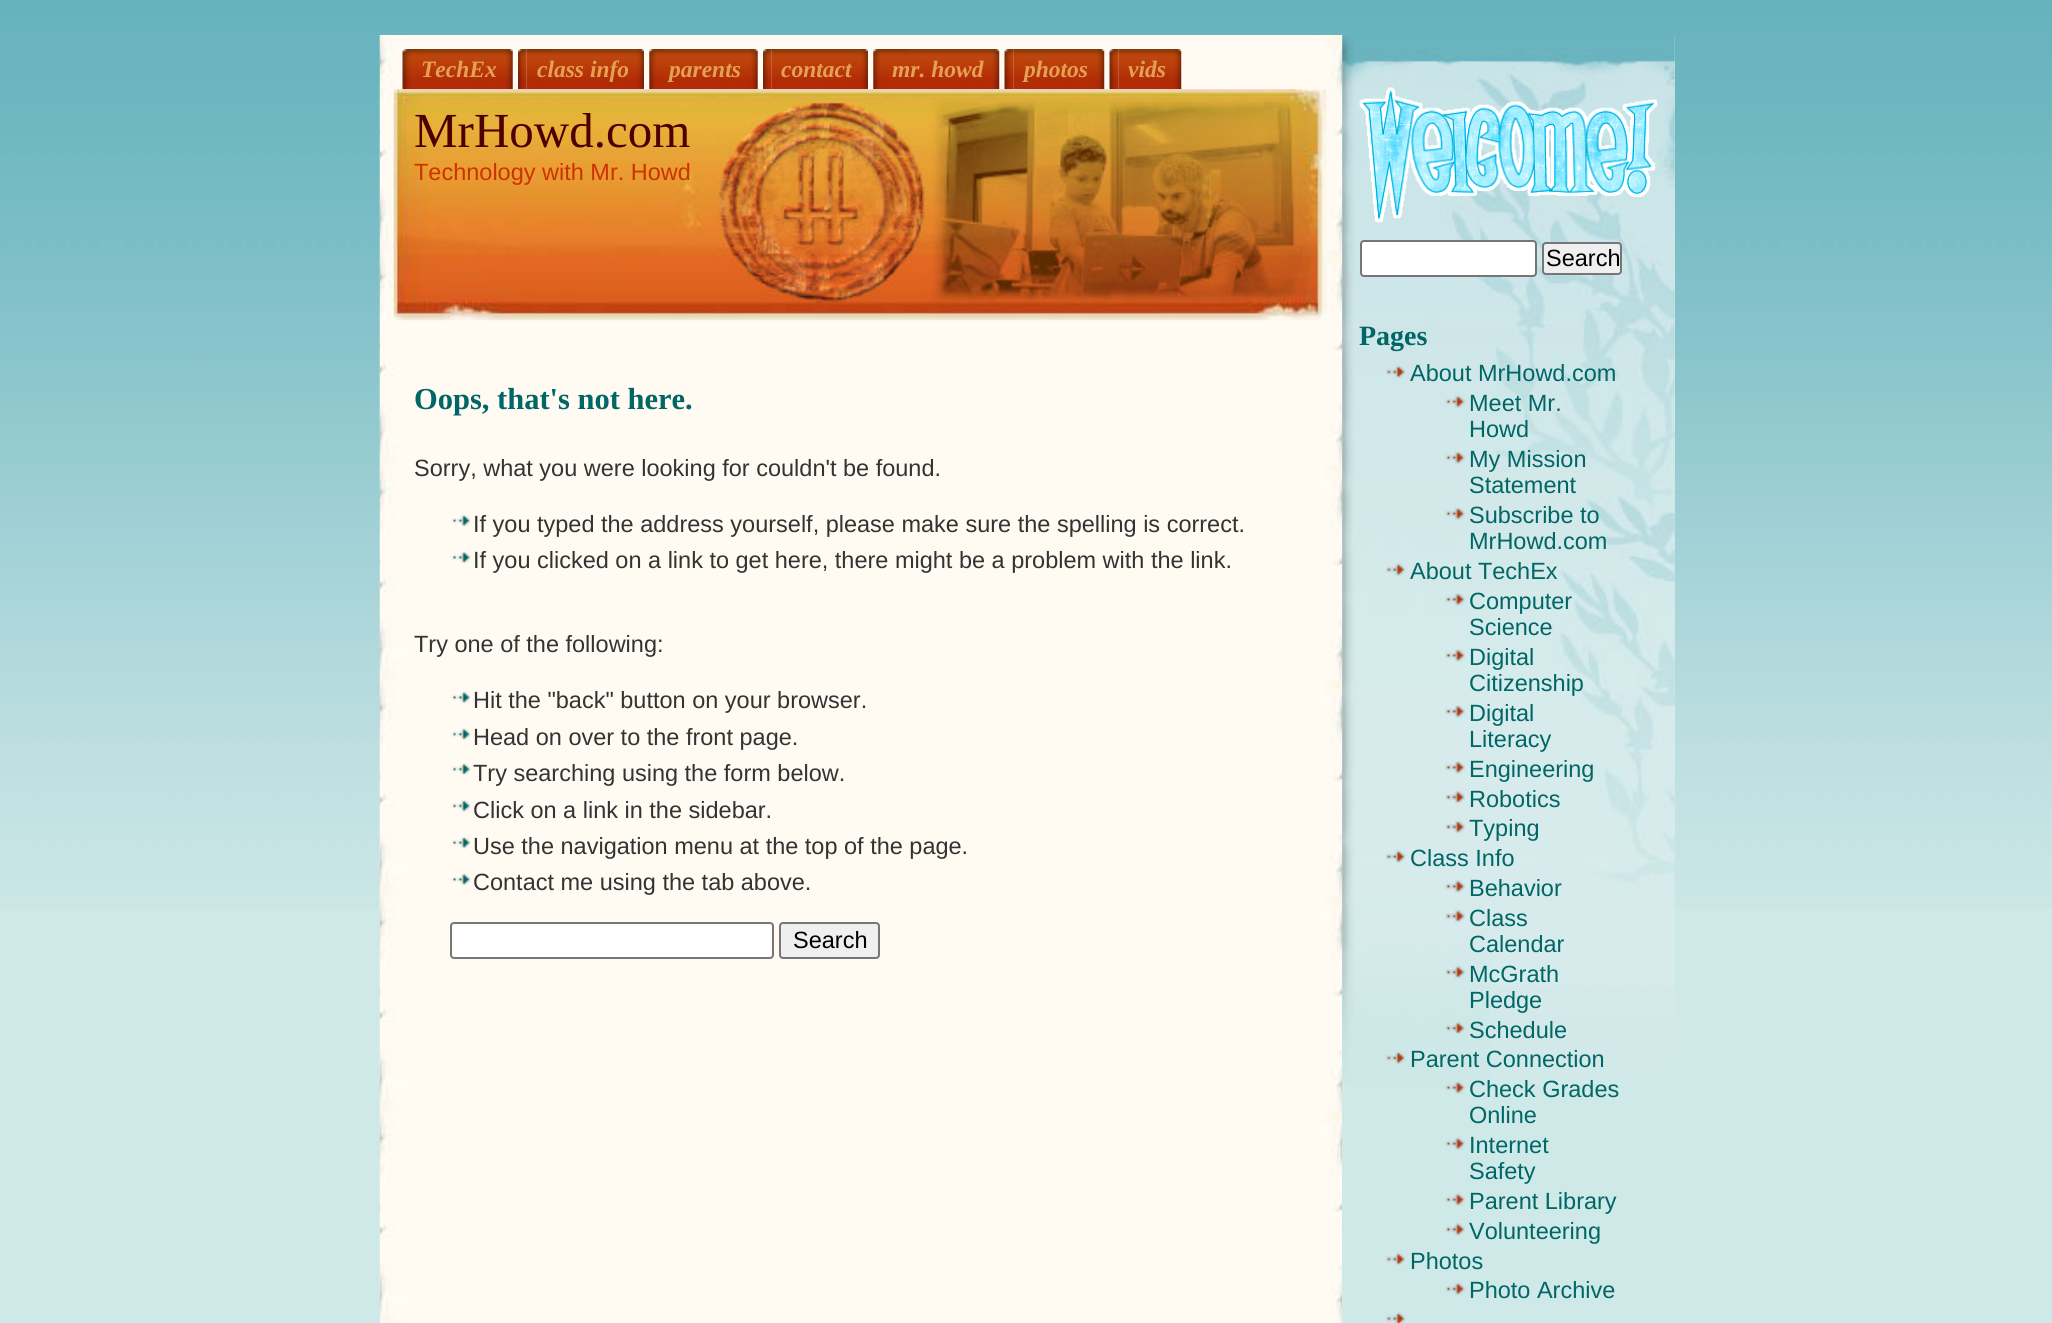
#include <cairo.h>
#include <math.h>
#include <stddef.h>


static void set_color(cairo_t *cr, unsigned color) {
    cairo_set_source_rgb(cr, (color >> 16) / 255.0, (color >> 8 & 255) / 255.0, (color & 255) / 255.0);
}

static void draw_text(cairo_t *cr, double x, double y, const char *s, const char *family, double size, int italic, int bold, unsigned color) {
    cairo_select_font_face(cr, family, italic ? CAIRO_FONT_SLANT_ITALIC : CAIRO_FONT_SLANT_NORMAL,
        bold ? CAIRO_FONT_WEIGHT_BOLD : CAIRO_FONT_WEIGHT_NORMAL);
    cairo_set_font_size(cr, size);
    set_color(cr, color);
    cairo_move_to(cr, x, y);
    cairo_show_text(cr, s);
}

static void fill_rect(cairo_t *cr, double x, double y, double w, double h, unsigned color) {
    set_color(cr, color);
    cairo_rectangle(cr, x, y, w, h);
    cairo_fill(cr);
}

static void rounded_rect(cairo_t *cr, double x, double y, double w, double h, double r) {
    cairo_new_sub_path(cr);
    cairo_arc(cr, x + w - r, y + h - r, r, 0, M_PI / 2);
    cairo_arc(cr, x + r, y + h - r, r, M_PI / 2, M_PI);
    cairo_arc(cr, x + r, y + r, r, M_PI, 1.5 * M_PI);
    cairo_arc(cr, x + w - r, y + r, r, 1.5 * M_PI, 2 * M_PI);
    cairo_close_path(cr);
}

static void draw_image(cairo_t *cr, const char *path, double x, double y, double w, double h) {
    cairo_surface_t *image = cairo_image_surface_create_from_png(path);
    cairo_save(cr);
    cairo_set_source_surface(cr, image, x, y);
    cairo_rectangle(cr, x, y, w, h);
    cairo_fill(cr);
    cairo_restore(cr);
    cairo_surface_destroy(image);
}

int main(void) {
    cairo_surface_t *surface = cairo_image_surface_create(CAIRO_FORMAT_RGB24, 2052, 1323);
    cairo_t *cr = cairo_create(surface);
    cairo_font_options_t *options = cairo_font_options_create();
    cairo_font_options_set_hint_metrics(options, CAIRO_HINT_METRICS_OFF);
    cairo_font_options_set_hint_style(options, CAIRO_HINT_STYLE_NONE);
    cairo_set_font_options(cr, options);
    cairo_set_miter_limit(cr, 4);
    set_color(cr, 0xCFE8E8);
    cairo_paint(cr);
    draw_image(cr, "assets/img1.png", 0, 0, 2052, 909);
    draw_image(cr, "assets/img2.png", 379, 35, 963, 1288);
    draw_image(cr, "assets/img3.png", 402, 49, 11, 41);
    draw_image(cr, "assets/img4.png", 411, 49, 102, 41);
    draw_text(cr, 421, 77, "TechEx", "Liberation Serif", 23.5, 1, 1, 0xE5A153);
    draw_image(cr, "assets/img5.png", 518, 49, 9, 41);
    draw_image(cr, "assets/img6.png", 526, 49, 118, 41);
    draw_text(cr, 537, 77, "class info", "Liberation Serif", 23.5, 1, 1, 0xE5A153);
    draw_image(cr, "assets/img7.png", 649, 49, 9, 41);
    draw_image(cr, "assets/img8.png", 658, 49, 100, 41);
    draw_text(cr, 669, 77, "parents", "Liberation Serif", 23.5, 1, 1, 0xE5A153);
    draw_image(cr, "assets/img5.png", 763, 49, 9, 41);
    draw_image(cr, "assets/img9.png", 771, 49, 97, 41);
    draw_text(cr, 781, 77, "contact", "Liberation Serif", 23.5, 1, 1, 0xE5A153);
    draw_image(cr, "assets/img7.png", 873, 49, 9, 41);
    draw_image(cr, "assets/img10.png", 882, 49, 118, 41);
    draw_text(cr, 892, 77, "mr. howd", "Liberation Serif", 23.5, 1, 1, 0xE5A153);
    draw_image(cr, "assets/img11.png", 1004, 49, 10, 41);
    draw_image(cr, "assets/img12.png", 1013, 49, 92, 41);
    draw_text(cr, 1024, 77, "photos", "Liberation Serif", 23.5, 1, 1, 0xE5A153);
    draw_image(cr, "assets/img13.png", 1109, 49, 10, 41);
    draw_image(cr, "assets/img14.png", 1118, 49, 64, 41);
    draw_text(cr, 1128, 77, "vids", "Liberation Serif", 23.5, 1, 1, 0xE5A153);
    draw_image(cr, "assets/img15.png", 393, 89, 934, 232);
    draw_text(cr, 414, 147, "MrHowd.com", "Liberation Serif", 49, 0, 0, 0x4D0000);
    draw_text(cr, 414, 180, "Technology with Mr. Howd", "Liberation Sans", 23.5, 0, 0, 0xCC3300);
    draw_text(cr, 414, 409, "Oops, that's not here.", "Liberation Serif", 30.5, 0, 1, 0x006666);
    draw_text(cr, 414, 476, "Sorry, what you were looking for couldn't be found.", "Liberation Sans", 23.5, 0, 0, 0x333333);
    draw_image(cr, "assets/img16.png", 451, 514, 20, 13);
    draw_text(cr, 473, 532, "If you typed the address yourself, please make sure the spelling is correct.", "Liberation Sans", 23.5, 0, 0, 0x333333);
    draw_image(cr, "assets/img17.png", 451, 551, 20, 13);
    draw_text(cr, 473, 568, "If you clicked on a link to get here, there might be a problem with the link.", "Liberation Sans", 23.5, 0, 0, 0x333333);
    draw_text(cr, 414, 652, "Try one of the following:", "Liberation Sans", 23.5, 0, 0, 0x333333);
    draw_image(cr, "assets/img17.png", 451, 691, 20, 13);
    draw_text(cr, 473, 708, "Hit the \"back\" button on your browser.", "Liberation Sans", 23.5, 0, 0, 0x333333);
    draw_image(cr, "assets/img18.png", 451, 728, 20, 12);
    draw_text(cr, 473, 745, "Head on over to the front page.", "Liberation Sans", 23.5, 0, 0, 0x333333);
    draw_image(cr, "assets/img18.png", 451, 763, 20, 12);
    draw_text(cr, 473, 781, "Try searching using the form below.", "Liberation Sans", 23.5, 0, 0, 0x333333);
    draw_image(cr, "assets/img19.png", 451, 800, 20, 12);
    draw_text(cr, 473, 818, "Click on a link in the sidebar.", "Liberation Sans", 23.5, 0, 0, 0x333333);
    draw_image(cr, "assets/img16.png", 451, 836, 20, 13);
    draw_text(cr, 473, 854, "Use the navigation menu at the top of the page.", "Liberation Sans", 23.5, 0, 0, 0x333333);
    draw_image(cr, "assets/img17.png", 451, 873, 20, 13);
    draw_text(cr, 473, 890, "Contact me using the tab above.", "Liberation Sans", 23.5, 0, 0, 0x333333);
    set_color(cr, 0xFFFFFF);
    rounded_rect(cr, 451, 923, 322, 35, 3);
    cairo_fill_preserve(cr);
    set_color(cr, 0x767676);
    cairo_stroke(cr);
    set_color(cr, 0xEFEFEF);
    rounded_rect(cr, 780, 923, 99, 35, 3);
    cairo_fill_preserve(cr);
    set_color(cr, 0x767676);
    cairo_stroke(cr);
    draw_text(cr, 793, 948, "Search", "Liberation Sans", 23.5, 0, 0, 0x000000);
    fill_rect(cr, 1342, 35, 333, 874, 0xD0E8E8);
    draw_image(cr, "assets/img20.png", 1342, 35, 333, 1050);
    draw_image(cr, "assets/img21.png", 1359, 87, 299, 136);
    set_color(cr, 0xFFFFFF);
    rounded_rect(cr, 1361, 241, 175, 35, 3);
    cairo_fill_preserve(cr);
    set_color(cr, 0x767676);
    cairo_stroke(cr);
    set_color(cr, 0xEFEFEF);
    rounded_rect(cr, 1543, 243, 78, 31, 3);
    cairo_fill_preserve(cr);
    set_color(cr, 0x767676);
    cairo_stroke(cr);
    draw_text(cr, 1546, 266, "Search", "Liberation Sans", 23.5, 0, 0, 0x000000);
    draw_text(cr, 1359, 345, "Pages", "Liberation Serif", 28, 0, 1, 0x006666);
    draw_image(cr, "assets/img22.png", 1386, 365, 20, 13);
    draw_text(cr, 1410, 381, "About MrHowd.com", "Liberation Sans", 23.5, 0, 0, 0x006666);
    draw_image(cr, "assets/img23.png", 1445, 395, 20, 13);
    draw_text(cr, 1469, 411, "Meet Mr.", "Liberation Sans", 23.5, 0, 0, 0x006666);
    draw_text(cr, 1469, 437, "Howd", "Liberation Sans", 23.5, 0, 0, 0x006666);
    draw_image(cr, "assets/img24.png", 1445, 451, 20, 13);
    draw_text(cr, 1469, 467, "My Mission", "Liberation Sans", 23.5, 0, 0, 0x006666);
    draw_text(cr, 1469, 493, "Statement", "Liberation Sans", 23.5, 0, 0, 0x006666);
    draw_image(cr, "assets/img25.png", 1445, 507, 20, 13);
    draw_text(cr, 1469, 523, "Subscribe to", "Liberation Sans", 23.5, 0, 0, 0x006666);
    draw_text(cr, 1469, 549, "MrHowd.com", "Liberation Sans", 23.5, 0, 0, 0x006666);
    draw_image(cr, "assets/img26.png", 1386, 563, 20, 13);
    draw_text(cr, 1410, 579, "About TechEx", "Liberation Sans", 23.5, 0, 0, 0x006666);
    draw_image(cr, "assets/img27.png", 1445, 593, 20, 13);
    draw_text(cr, 1469, 609, "Computer", "Liberation Sans", 23.5, 0, 0, 0x006666);
    draw_text(cr, 1469, 635, "Science", "Liberation Sans", 23.5, 0, 0, 0x006666);
    draw_image(cr, "assets/img28.png", 1445, 649, 20, 13);
    draw_text(cr, 1469, 665, "Digital", "Liberation Sans", 23.5, 0, 0, 0x006666);
    draw_text(cr, 1469, 691, "Citizenship", "Liberation Sans", 23.5, 0, 0, 0x006666);
    draw_image(cr, "assets/img29.png", 1445, 705, 20, 13);
    draw_text(cr, 1469, 721, "Digital", "Liberation Sans", 23.5, 0, 0, 0x006666);
    draw_text(cr, 1469, 747, "Literacy", "Liberation Sans", 23.5, 0, 0, 0x006666);
    draw_image(cr, "assets/img30.png", 1445, 761, 20, 13);
    draw_text(cr, 1469, 777, "Engineering", "Liberation Sans", 23.5, 0, 0, 0x006666);
    draw_image(cr, "assets/img31.png", 1445, 791, 20, 13);
    draw_text(cr, 1469, 807, "Robotics", "Liberation Sans", 23.5, 0, 0, 0x006666);
    draw_image(cr, "assets/img32.png", 1445, 820, 20, 13);
    draw_text(cr, 1469, 836, "Typing", "Liberation Sans", 23.5, 0, 0, 0x006666);
    draw_image(cr, "assets/img33.png", 1386, 850, 20, 13);
    draw_text(cr, 1410, 866, "Class Info", "Liberation Sans", 23.5, 0, 0, 0x006666);
    draw_image(cr, "assets/img29.png", 1445, 880, 20, 13);
    draw_text(cr, 1469, 896, "Behavior", "Liberation Sans", 23.5, 0, 0, 0x006666);
    draw_image(cr, "assets/img34.png", 1445, 910, 20, 13);
    draw_text(cr, 1469, 926, "Class", "Liberation Sans", 23.5, 0, 0, 0x006666);
    draw_text(cr, 1469, 952, "Calendar", "Liberation Sans", 23.5, 0, 0, 0x006666);
    draw_image(cr, "assets/img35.png", 1445, 966, 20, 13);
    draw_text(cr, 1469, 982, "McGrath", "Liberation Sans", 23.5, 0, 0, 0x006666);
    draw_text(cr, 1469, 1008, "Pledge", "Liberation Sans", 23.5, 0, 0, 0x006666);
    draw_image(cr, "assets/img36.png", 1445, 1022, 20, 12);
    draw_text(cr, 1469, 1038, "Schedule", "Liberation Sans", 23.5, 0, 0, 0x006666);
    draw_image(cr, "assets/img37.png", 1386, 1051, 19, 13);
    draw_text(cr, 1410, 1067, "Parent Connection", "Liberation Sans", 23.5, 0, 0, 0x006666);
    draw_image(cr, "assets/img38.png", 1445, 1081, 20, 13);
    draw_text(cr, 1469, 1097, "Check Grades", "Liberation Sans", 23.5, 0, 0, 0x006666);
    draw_text(cr, 1469, 1123, "Online", "Liberation Sans", 23.5, 0, 0, 0x006666);
    draw_image(cr, "assets/img39.png", 1445, 1137, 20, 13);
    draw_text(cr, 1469, 1153, "Internet", "Liberation Sans", 23.5, 0, 0, 0x006666);
    draw_text(cr, 1469, 1179, "Safety", "Liberation Sans", 23.5, 0, 0, 0x006666);
    draw_image(cr, "assets/img39.png", 1445, 1193, 20, 13);
    draw_text(cr, 1469, 1209, "Parent Library", "Liberation Sans", 23.5, 0, 0, 0x006666);
    draw_image(cr, "assets/img40.png", 1445, 1223, 20, 13);
    draw_text(cr, 1469, 1239, "Volunteering", "Liberation Sans", 23.5, 0, 0, 0x006666);
    draw_image(cr, "assets/img41.png", 1386, 1253, 20, 13);
    draw_text(cr, 1410, 1269, "Photos", "Liberation Sans", 23.5, 0, 0, 0x006666);
    draw_image(cr, "assets/img42.png", 1445, 1282, 20, 13);
    draw_text(cr, 1469, 1298, "Photo Archive", "Liberation Sans", 23.5, 0, 0, 0x006666);
    draw_image(cr, "assets/img43.png", 1386, 1312, 20, 11);
    cairo_surface_write_to_png(surface, "output.png");
    cairo_font_options_destroy(options);
    cairo_destroy(cr);
    cairo_surface_destroy(surface);
    return 0;
}
